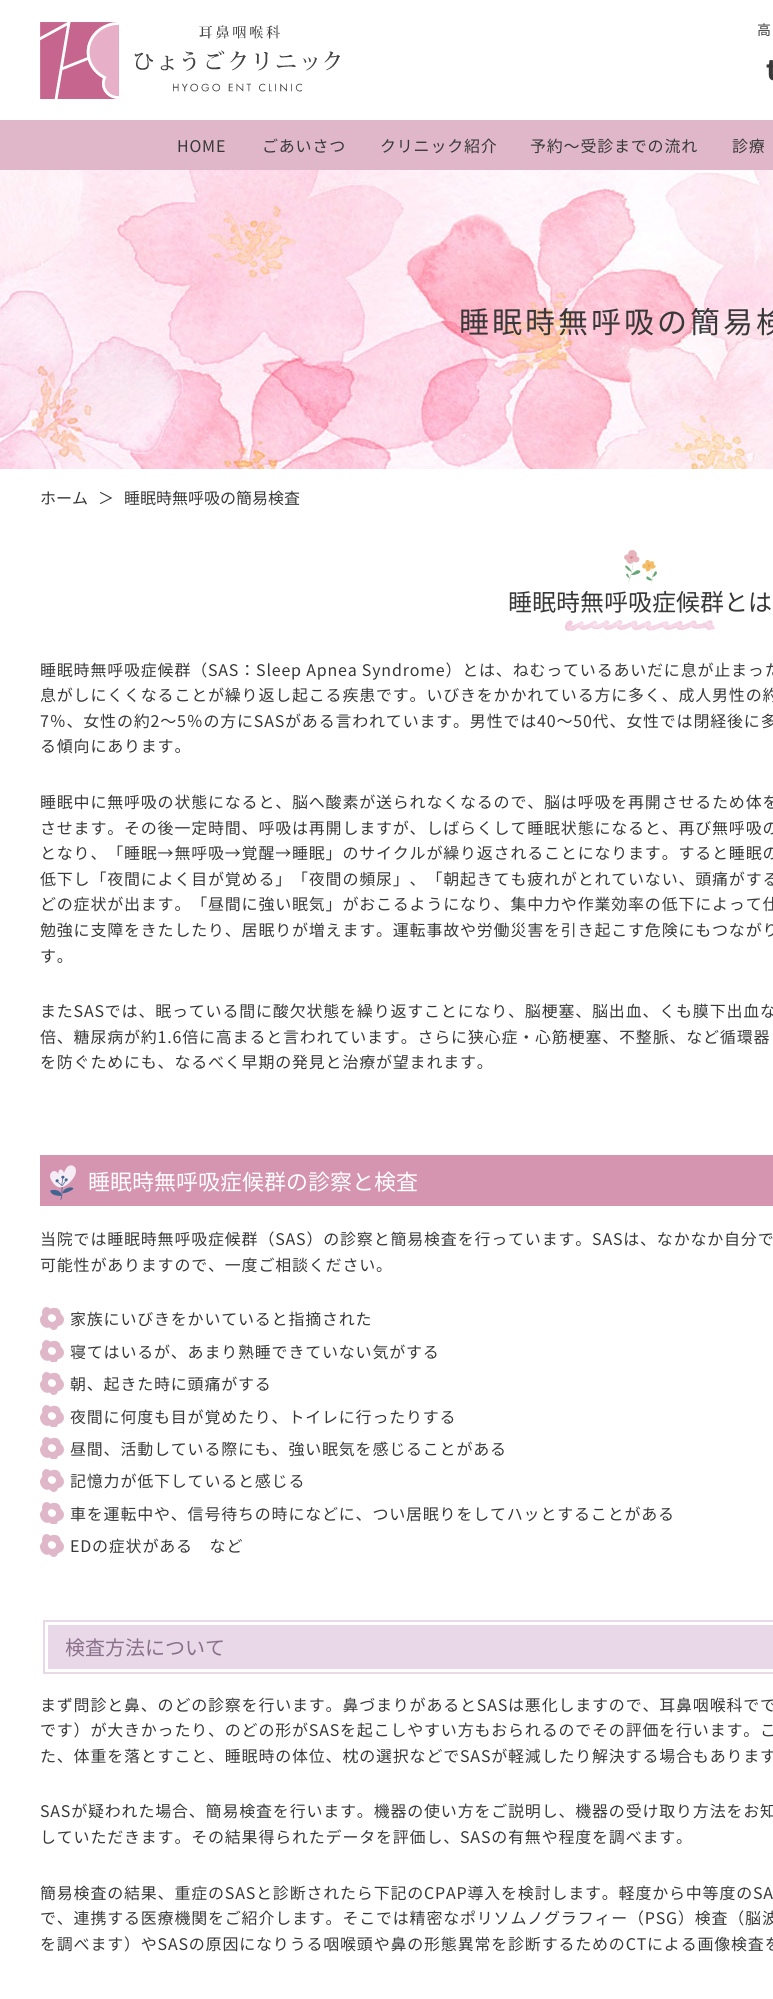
#include <cairo.h>
#include <math.h>
#include <stddef.h>


static void set_color(cairo_t *cr, unsigned color) {
    cairo_set_source_rgb(cr, (color >> 16) / 255.0, (color >> 8 & 255) / 255.0, (color & 255) / 255.0);
}

static void draw_text(cairo_t *cr, double x, double y, const char *s, const char *family, double size, int italic, int bold, unsigned color) {
    cairo_select_font_face(cr, family, italic ? CAIRO_FONT_SLANT_ITALIC : CAIRO_FONT_SLANT_NORMAL,
        bold ? CAIRO_FONT_WEIGHT_BOLD : CAIRO_FONT_WEIGHT_NORMAL);
    cairo_set_font_size(cr, size);
    set_color(cr, color);
    cairo_move_to(cr, x, y);
    cairo_show_text(cr, s);
}

static void draw_spaced(cairo_t *cr, double x, double y, const char *s, double letter, double word) {
    cairo_move_to(cr, x, y);
    while (*s) {
        char ch[5] = {0};
        int n = 0;
        do ch[n++] = *s++; while ((*s & 0xC0) == 0x80);
        cairo_show_text(cr, ch);
        cairo_rel_move_to(cr, letter + word * (*ch == ' '), 0);
    }
}

static void fill_rect(cairo_t *cr, double x, double y, double w, double h, unsigned color) {
    set_color(cr, color);
    cairo_rectangle(cr, x, y, w, h);
    cairo_fill(cr);
}

static void draw_image(cairo_t *cr, const char *path, double x, double y, double w, double h) {
    cairo_surface_t *image = cairo_image_surface_create_from_png(path);
    cairo_save(cr);
    cairo_set_source_surface(cr, image, x, y);
    cairo_rectangle(cr, x, y, w, h);
    cairo_fill(cr);
    cairo_restore(cr);
    cairo_surface_destroy(image);
}

int main(void) {
    cairo_surface_t *surface = cairo_image_surface_create(CAIRO_FORMAT_RGB24, 773, 1999);
    cairo_t *cr = cairo_create(surface);
    cairo_font_options_t *options = cairo_font_options_create();
    cairo_font_options_set_hint_metrics(options, CAIRO_HINT_METRICS_OFF);
    cairo_font_options_set_hint_style(options, CAIRO_HINT_STYLE_NONE);
    cairo_set_font_options(cr, options);
    cairo_set_miter_limit(cr, 4);
    set_color(cr, 0xFFFFFF);
    cairo_paint(cr);
    draw_image(cr, "assets/img1.png", 40, 22, 300, 77);
    cairo_select_font_face(cr, "Noto Sans JP", CAIRO_FONT_SLANT_NORMAL, CAIRO_FONT_WEIGHT_NORMAL);
    cairo_set_font_size(cr, 14);
    set_color(cr, 0x383838);
    draw_spaced(cr, 757, 35, "高", 1, 0);
    cairo_select_font_face(cr, "Noto Sans JP", CAIRO_FONT_SLANT_NORMAL, CAIRO_FONT_WEIGHT_BOLD);
    cairo_set_font_size(cr, 28);
    draw_spaced(cr, 766, 80, "t", 1, 0);
    fill_rect(cr, 0, 120, 773, 50, 0xDFB7C8);
    cairo_select_font_face(cr, "Noto Sans JP", CAIRO_FONT_SLANT_NORMAL, CAIRO_FONT_WEIGHT_NORMAL);
    cairo_set_font_size(cr, 16);
    set_color(cr, 0x383838);
    draw_spaced(cr, 177, 152, "HOME", 0.8, 0);
    draw_spaced(cr, 262, 152, "ごあいさつ", 0.8, 0);
    draw_spaced(cr, 380, 152, "クリニック紹介", 0.8, 0);
    draw_spaced(cr, 530, 152, "予約～受診までの流れ", 0.8, 0);
    draw_spaced(cr, 732, 152, "診療", 0.8, 0);
    draw_image(cr, "assets/img2.png", 0, 170, 773, 299);
    cairo_set_font_size(cr, 30);
    draw_spaced(cr, 459, 333, "睡眠時無呼吸の簡易検", 3, 0);
    draw_text(cr, 40, 504, "ホーム", "Noto Sans JP", 16, 0, 0, 0x383838);
    draw_text(cr, 98, 504, "＞", "Noto Sans JP", 16, 0, 0, 0x383838);
    draw_text(cr, 124, 504, "睡眠時無呼吸の簡易検査", "Noto Sans JP", 16, 0, 0, 0x383838);
    draw_image(cr, "assets/img3.png", 624, 550, 33, 34);
    draw_text(cr, 508, 611, "睡眠時無呼吸症候群とは", "Noto Sans JP", 24, 0, 0, 0x383838);
    draw_image(cr, "assets/img4.png", 565, 620, 150, 11);
    cairo_set_font_size(cr, 16);
    draw_spaced(cr, 40, 676, "睡眠時無呼吸症候群（SAS：Sleep Apnea Syndrome）とは、ねむっているあいだに息が止まった", 0.8, 0);
    draw_spaced(cr, 40, 701, "息がしにくくなることが繰り返し起こる疾患です。いびきをかかれている方に多く、成人男性の約", 0.8, 0);
    draw_spaced(cr, 40, 727, "7％、女性の約2～5％の方にSASがある言われています。男性では40～50代、女性では閉経後に多", 0.8, 0);
    draw_spaced(cr, 40, 752, "る傾向にあります。", 0.8, 0);
    draw_spaced(cr, 40, 808, "睡眠中に無呼吸の状態になると、脳へ酸素が送られなくなるので、脳は呼吸を再開させるため体を", 0.8, 0);
    draw_spaced(cr, 40, 834, "させます。その後一定時間、呼吸は再開しますが、しばらくして睡眠状態になると、再び無呼吸の", 0.8, 0);
    draw_spaced(cr, 40, 859, "となり、「睡眠→無呼吸→覚醒→睡眠」のサイクルが繰り返されることになります。すると睡眠の", 0.8, 0);
    draw_spaced(cr, 40, 885, "低下し「夜間によく目が覚める」「夜間の頻尿」、「朝起きても疲れがとれていない、頭痛がする", 0.8, 0);
    draw_spaced(cr, 40, 910, "どの症状が出ます。「昼間に強い眠気」がおこるようになり、集中力や作業効率の低下によって仕", 0.8, 0);
    draw_spaced(cr, 40, 936, "勉強に支障をきたしたり、居眠りが増えます。運転事故や労働災害を引き起こす危険にもつながり", 0.8, 0);
    draw_spaced(cr, 40, 962, "す。", 0.8, 0);
    draw_spaced(cr, 40, 1017, "またSASでは、眠っている間に酸欠状態を繰り返すことになり、脳梗塞、脳出血、くも膜下出血な", 0.8, 0);
    draw_spaced(cr, 40, 1043, "倍、糖尿病が約1.6倍に高まると言われています。さらに狭心症・心筋梗塞、不整脈、など循環器", 0.8, 0);
    draw_spaced(cr, 40, 1068, "を防ぐためにも、なるべく早期の発見と治療が望まれます。", 0.8, 0);
    fill_rect(cr, 40, 1155, 733, 51, 0xD594B0);
    draw_image(cr, "assets/img5.png", 50, 1165, 26, 35);
    draw_text(cr, 88, 1190, "睡眠時無呼吸症候群の診察と検査", "Noto Sans JP", 22, 0, 0, 0xFFFFFF);
    cairo_set_font_size(cr, 16);
    set_color(cr, 0x383838);
    draw_spaced(cr, 40, 1245, "当院では睡眠時無呼吸症候群（SAS）の診察と簡易検査を行っています。SASは、なかなか自分で", 0.8, 0);
    draw_spaced(cr, 40, 1271, "可能性がありますので、一度ご相談ください。", 0.8, 0);
    draw_image(cr, "assets/img6.png", 40, 1307, 24, 23);
    draw_spaced(cr, 70, 1325, "家族にいびきをかいていると指摘された", 0.8, 0);
    draw_image(cr, "assets/img7.png", 40, 1340, 24, 22);
    draw_spaced(cr, 70, 1358, "寝てはいるが、あまり熟睡できていない気がする", 0.8, 0);
    draw_image(cr, "assets/img6.png", 40, 1372, 24, 23);
    draw_spaced(cr, 70, 1390, "朝、起きた時に頭痛がする", 0.8, 0);
    draw_image(cr, "assets/img7.png", 40, 1405, 24, 22);
    draw_spaced(cr, 70, 1423, "夜間に何度も目が覚めたり、トイレに行ったりする", 0.8, 0);
    draw_image(cr, "assets/img7.png", 40, 1437, 24, 22);
    draw_spaced(cr, 70, 1455, "昼間、活動している際にも、強い眠気を感じることがある", 0.8, 0);
    draw_image(cr, "assets/img6.png", 40, 1469, 24, 23);
    draw_spaced(cr, 70, 1487, "記憶力が低下していると感じる", 0.8, 0);
    draw_image(cr, "assets/img7.png", 40, 1502, 24, 22);
    draw_spaced(cr, 70, 1520, "車を運転中や、信号待ちの時になどに、つい居眠りをしてハッとすることがある", 0.8, 0);
    draw_image(cr, "assets/img6.png", 40, 1534, 24, 23);
    draw_spaced(cr, 70, 1552, "EDの症状がある　など", 0.8, 0);
    fill_rect(cr, 43, 1620, 730, 54, 0xE8D8E8);
    cairo_rectangle(cr, 46.5, 1623.5, 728, 47);
    set_color(cr, 0xFFFFFF);
    cairo_set_line_width(cr, 3);
    cairo_stroke(cr);
    draw_text(cr, 65, 1655, "検査方法について", "Noto Sans JP", 20, 0, 0, 0x8A708A);
    cairo_set_font_size(cr, 16);
    set_color(cr, 0x383838);
    draw_spaced(cr, 40, 1711, "まず問診と鼻、のどの診察を行います。鼻づまりがあるとSASは悪化しますので、耳鼻咽喉科でで", 0.8, 0);
    draw_spaced(cr, 40, 1736, "です）が大きかったり、のどの形がSASを起こしやすい方もおられるのでその評価を行います。こ", 0.8, 0);
    draw_spaced(cr, 40, 1762, "た、体重を落とすこと、睡眠時の体位、枕の選択などでSASが軽減したり解決する場合もあります", 0.8, 0);
    draw_spaced(cr, 40, 1817, "SASが疑われた場合、簡易検査を行います。機器の使い方をご説明し、機器の受け取り方法をお知", 0.8, 0);
    draw_spaced(cr, 40, 1843, "していただきます。その結果得られたデータを評価し、SASの有無や程度を調べます。", 0.8, 0);
    draw_spaced(cr, 40, 1899, "簡易検査の結果、重症のSASと診断されたら下記のCPAP導入を検討します。軽度から中等度のSA", 0.8, 0);
    draw_spaced(cr, 40, 1924, "で、連携する医療機関をご紹介します。そこでは精密なポリソムノグラフィー（PSG）検査（脳波", 0.8, 0);
    draw_spaced(cr, 40, 1950, "を調べます）やSASの原因になりうる咽喉頭や鼻の形態異常を診断するためのCTによる画像検査を", 0.8, 0);
    cairo_surface_write_to_png(surface, "output.png");
    cairo_font_options_destroy(options);
    cairo_destroy(cr);
    cairo_surface_destroy(surface);
    return 0;
}
